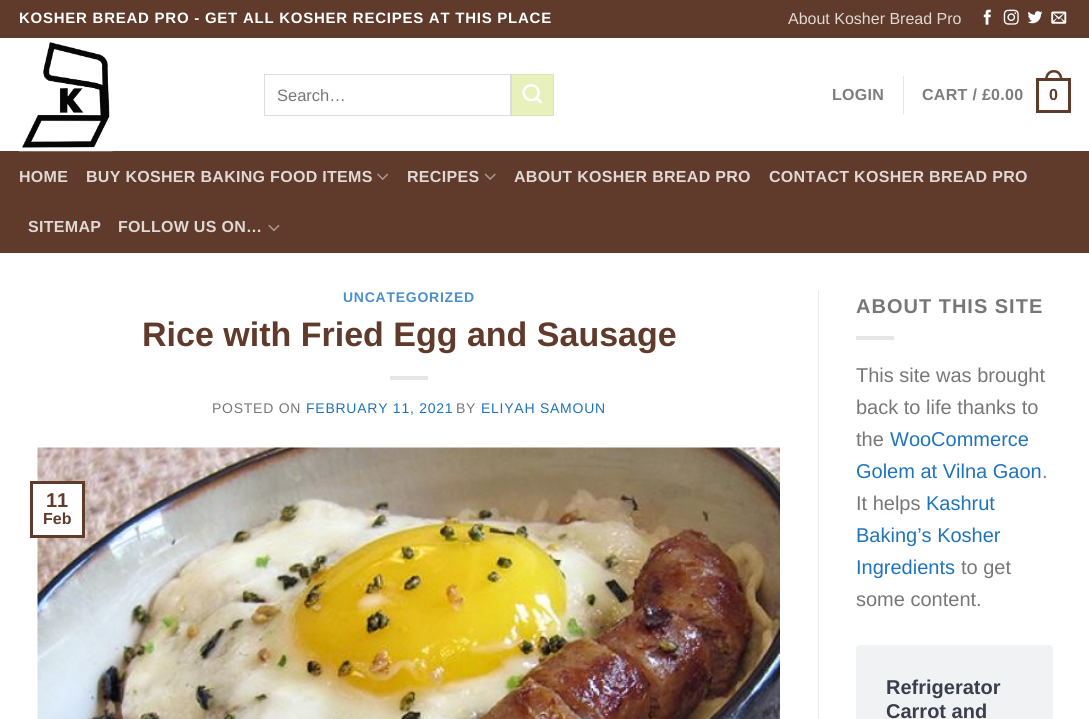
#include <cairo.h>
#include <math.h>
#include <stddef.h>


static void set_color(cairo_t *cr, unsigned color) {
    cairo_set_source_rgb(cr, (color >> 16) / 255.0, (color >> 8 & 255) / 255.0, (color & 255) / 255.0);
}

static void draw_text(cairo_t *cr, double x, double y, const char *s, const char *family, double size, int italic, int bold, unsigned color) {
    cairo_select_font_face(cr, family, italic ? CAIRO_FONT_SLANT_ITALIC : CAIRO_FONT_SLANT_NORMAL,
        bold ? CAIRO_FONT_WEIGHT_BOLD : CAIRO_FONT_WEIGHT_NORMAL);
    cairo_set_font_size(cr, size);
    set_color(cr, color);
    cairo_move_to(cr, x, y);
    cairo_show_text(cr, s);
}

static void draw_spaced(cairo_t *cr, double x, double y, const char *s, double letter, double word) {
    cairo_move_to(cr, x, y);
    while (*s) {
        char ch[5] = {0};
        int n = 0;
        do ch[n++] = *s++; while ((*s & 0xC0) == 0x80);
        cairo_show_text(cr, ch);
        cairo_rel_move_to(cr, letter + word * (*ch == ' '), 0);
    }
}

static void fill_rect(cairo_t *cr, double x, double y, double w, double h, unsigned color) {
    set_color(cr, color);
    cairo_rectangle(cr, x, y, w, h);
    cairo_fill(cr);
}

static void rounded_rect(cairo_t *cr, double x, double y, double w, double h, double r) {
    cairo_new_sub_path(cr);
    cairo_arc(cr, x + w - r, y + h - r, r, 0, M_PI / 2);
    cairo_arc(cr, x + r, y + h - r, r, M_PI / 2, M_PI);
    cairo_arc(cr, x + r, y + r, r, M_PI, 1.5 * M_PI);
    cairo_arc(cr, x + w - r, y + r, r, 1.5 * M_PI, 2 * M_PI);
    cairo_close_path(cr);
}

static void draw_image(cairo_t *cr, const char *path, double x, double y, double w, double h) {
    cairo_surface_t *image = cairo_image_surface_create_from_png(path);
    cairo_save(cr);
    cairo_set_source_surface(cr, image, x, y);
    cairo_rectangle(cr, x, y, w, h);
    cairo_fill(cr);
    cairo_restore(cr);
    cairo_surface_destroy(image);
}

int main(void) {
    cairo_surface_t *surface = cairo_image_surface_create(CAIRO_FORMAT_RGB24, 1089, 719);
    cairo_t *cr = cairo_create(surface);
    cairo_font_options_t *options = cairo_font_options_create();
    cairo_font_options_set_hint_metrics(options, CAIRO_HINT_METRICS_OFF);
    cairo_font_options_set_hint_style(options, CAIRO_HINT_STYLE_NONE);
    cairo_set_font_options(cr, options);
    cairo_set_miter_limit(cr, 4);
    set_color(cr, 0xFFFFFF);
    cairo_paint(cr);
    fill_rect(cr, 0, 0, 1089, 38, 0x603A2A);
    cairo_select_font_face(cr, "Liberation Sans", CAIRO_FONT_SLANT_NORMAL, CAIRO_FONT_WEIGHT_BOLD);
    cairo_set_font_size(cr, 15);
    set_color(cr, 0xFFFFFF);
    draw_spaced(cr, 19, 23, "KOSHER BREAD PRO - GET ALL KOSHER RECIPES AT THIS PLACE", 0.75, 0);
    draw_text(cr, 788, 24, "About Kosher Bread Pro", "Liberation Sans", 16, 0, 0, 0xDFD8D4);
    draw_image(cr, "assets/img1.png", 983, 9, 8, 16);
    draw_image(cr, "assets/img2.png", 1003, 9, 16, 16);
    draw_image(cr, "assets/img3.png", 1027, 11, 16, 13);
    draw_image(cr, "assets/img4.png", 1051, 11, 16, 13);
    fill_rect(cr, 0, 151, 1089, 102, 0x603A2A);
    draw_image(cr, "assets/img5.png", 18, 42, 95, 110);
    cairo_rectangle(cr, 264.5, 74.5, 246, 41);
    set_color(cr, 0xDDDDDD);
    cairo_set_line_width(cr, 1);
    cairo_stroke(cr);
    draw_text(cr, 277, 101, "Search…", "Liberation Sans", 16.5, 0, 0, 0x777777);
    set_color(cr, 0xE8F1BB);
    cairo_rectangle(cr, 511.5, 74.5, 42, 41);
    cairo_fill_preserve(cr);
    set_color(cr, 0xDCE5B2);
    cairo_stroke(cr);
    draw_image(cr, "assets/img6.png", 522, 84, 21, 20);
    cairo_select_font_face(cr, "Liberation Sans", CAIRO_FONT_SLANT_NORMAL, CAIRO_FONT_WEIGHT_BOLD);
    cairo_set_font_size(cr, 16);
    set_color(cr, 0x7D7D7D);
    draw_spaced(cr, 832, 100, "LOGIN", 0.3, 0);
    fill_rect(cr, 903, 76, 1, 38, 0xE6E6E6);
    set_color(cr, 0x7D7D7D);
    draw_spaced(cr, 922, 100, "CART / £0.00", 0.3, 0);
    cairo_rectangle(cr, 1037.5, 79.5, 32, 32);
    set_color(cr, 0x603A2A);
    cairo_set_line_width(cr, 3);
    cairo_stroke(cr);
    cairo_set_fill_rule(cr, CAIRO_FILL_RULE_EVEN_ODD);
    cairo_new_path(cr);
    cairo_move_to(cr, 1054, 70);
    cairo_curve_to(cr, 1059.5, 70, 1062.5, 74.5, 1062.5, 80);
    cairo_line_to(cr, 1045, 80);
    cairo_curve_to(cr, 1045, 74.5, 1048, 70, 1054, 70);
    cairo_close_path(cr);
    cairo_move_to(cr, 1054, 72.5);
    cairo_curve_to(cr, 1058, 72.5, 1060, 76, 1060, 80);
    cairo_line_to(cr, 1047.5, 80);
    cairo_curve_to(cr, 1047.5, 76, 1049.5, 72.5, 1054, 72.5);
    cairo_close_path(cr);
    cairo_fill(cr);
    draw_spaced(cr, 1049, 100, "0", 0.3, 0);
    cairo_set_source_rgba(cr, 0.467, 0.467, 0.467, 0.1);
    cairo_rectangle(cr, 112, 151, 959, 1);
    cairo_fill(cr);
    set_color(cr, 0xDFD8D4);
    draw_spaced(cr, 19, 182, "HOME", 0.3, 0);
    draw_spaced(cr, 86, 182, "BUY KOSHER BAKING FOOD ITEMS", 0.3, 0);
    draw_image(cr, "assets/img7.png", 377, 173, 12, 7);
    draw_spaced(cr, 407, 182, "RECIPES", 0.3, 0);
    draw_image(cr, "assets/img8.png", 484, 173, 12, 7);
    draw_spaced(cr, 514, 182, "ABOUT KOSHER BREAD PRO", 0.3, 0);
    draw_spaced(cr, 769, 182, "CONTACT KOSHER BREAD PRO", 0.3, 0);
    draw_spaced(cr, 28, 232, "SITEMAP", 0.3, 0);
    draw_spaced(cr, 118, 232, "FOLLOW US ON…", 0.3, 0);
    draw_image(cr, "assets/img9.png", 268, 224, 12, 8);
    cairo_set_font_size(cr, 14);
    set_color(cr, 0x4B8FCB);
    draw_spaced(cr, 343, 302, "UNCATEGORIZED", 0.75, 0);
    draw_text(cr, 142, 346, "Rice with Fried Egg and Sausage", "Liberation Sans", 34, 0, 1, 0x603A2A);
    fill_rect(cr, 390, 376, 38, 4, 0xE6E6E6);
    cairo_select_font_face(cr, "Liberation Sans", CAIRO_FONT_SLANT_NORMAL, CAIRO_FONT_WEIGHT_NORMAL);
    cairo_set_font_size(cr, 14);
    set_color(cr, 0x777777);
    draw_spaced(cr, 212, 413, "POSTED ON", 0.75, 0);
    set_color(cr, 0x1E73BE);
    draw_spaced(cr, 306, 413, "FEBRUARY 11, 2021", 0.75, 0);
    set_color(cr, 0x777777);
    draw_spaced(cr, 456, 413, "BY", 0.75, 0);
    set_color(cr, 0x1E73BE);
    draw_spaced(cr, 481, 413, "ELIYAH SAMOUN", 0.75, 0);
    draw_image(cr, "assets/img10.png", 37, 447, 743, 272);
    fill_rect(cr, 37, 484, 45, 51, 0xFFFFFF);
    cairo_rectangle(cr, 31.5, 482.5, 52, 54);
    set_color(cr, 0x603A2A);
    cairo_stroke(cr);
    draw_text(cr, 46, 507, "11", "Liberation Sans", 20, 0, 1, 0x603A2A);
    draw_text(cr, 43, 524, "Feb", "Liberation Sans", 16, 0, 1, 0x603A2A);
    fill_rect(cr, 818, 290, 1, 429, 0xECECEC);
    cairo_set_font_size(cr, 20);
    set_color(cr, 0x777777);
    draw_spaced(cr, 856, 313, "ABOUT THIS SITE", 1, 0);
    fill_rect(cr, 856, 336, 38, 4, 0xE6E6E6);
    draw_text(cr, 856, 382, "This site was brought", "Liberation Sans", 20, 0, 0, 0x777777);
    draw_text(cr, 856, 414, "back to life thanks to", "Liberation Sans", 20, 0, 0, 0x777777);
    draw_text(cr, 856, 446, "the", "Liberation Sans", 20, 0, 0, 0x777777);
    draw_text(cr, 890, 446, "WooCommerce", "Liberation Sans", 20, 0, 0, 0x1E73BE);
    draw_text(cr, 856, 478, "Golem at Vilna Gaon", "Liberation Sans", 20, 0, 0, 0x1E73BE);
    draw_text(cr, 1042, 478, ".", "Liberation Sans", 20, 0, 0, 0x777777);
    draw_text(cr, 856, 510, "It helps", "Liberation Sans", 20, 0, 0, 0x777777);
    draw_text(cr, 926, 510, "Kashrut", "Liberation Sans", 20, 0, 0, 0x1E73BE);
    draw_text(cr, 856, 542, "Baking’s Kosher", "Liberation Sans", 20, 0, 0, 0x1E73BE);
    draw_text(cr, 856, 574, "Ingredients", "Liberation Sans", 20, 0, 0, 0x1E73BE);
    draw_text(cr, 961, 574, "to get", "Liberation Sans", 20, 0, 0, 0x777777);
    draw_text(cr, 856, 606, "some content.", "Liberation Sans", 20, 0, 0, 0x777777);
    set_color(cr, 0xF0F2F4);
    rounded_rect(cr, 856, 645, 197, 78, 4);
    cairo_fill(cr);
    draw_text(cr, 886, 694, "Refrigerator", "Liberation Sans", 20, 0, 1, 0x393F4C);
    draw_text(cr, 886, 718, "Carrot and", "Liberation Sans", 20, 0, 1, 0x393F4C);
    cairo_surface_write_to_png(surface, "output.png");
    cairo_font_options_destroy(options);
    cairo_destroy(cr);
    cairo_surface_destroy(surface);
    return 0;
}
